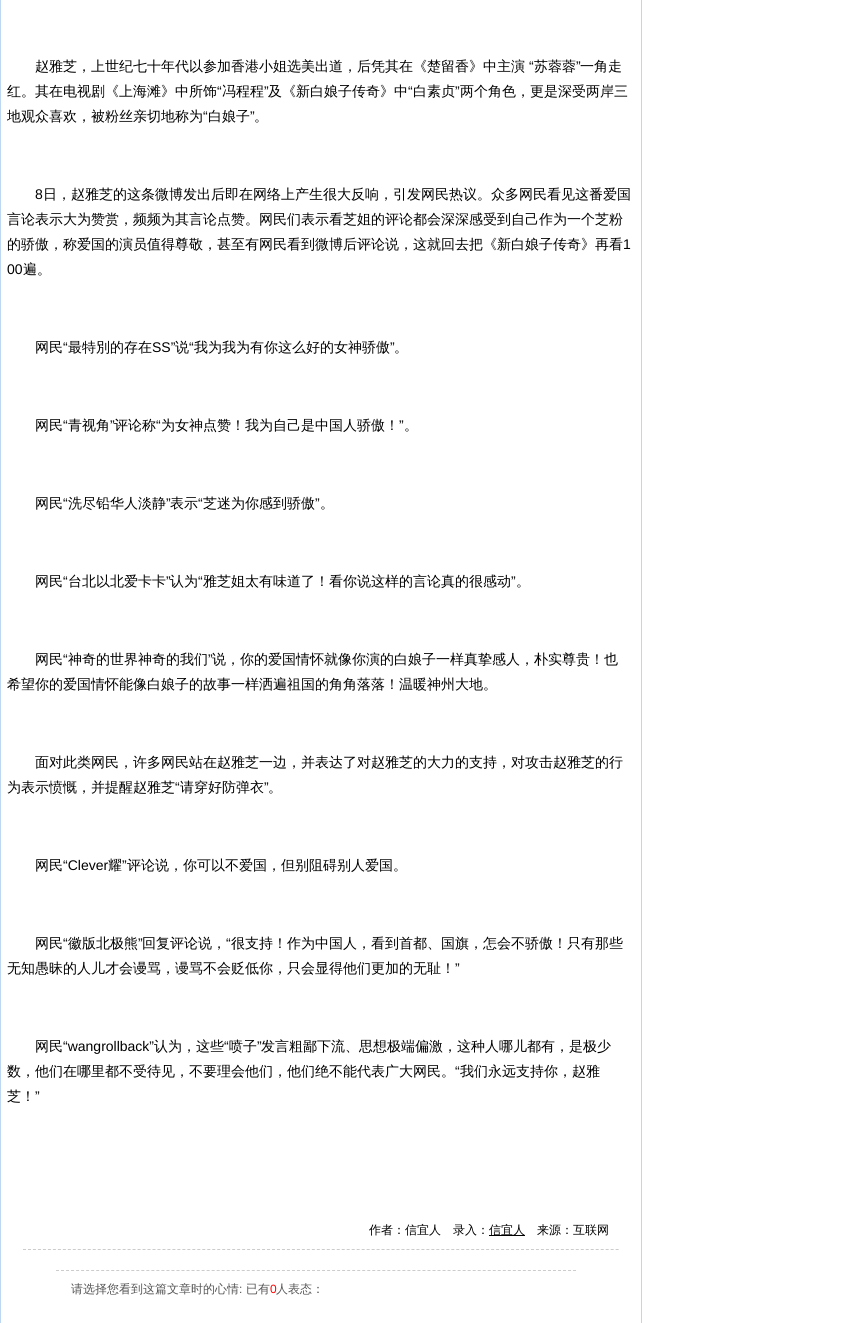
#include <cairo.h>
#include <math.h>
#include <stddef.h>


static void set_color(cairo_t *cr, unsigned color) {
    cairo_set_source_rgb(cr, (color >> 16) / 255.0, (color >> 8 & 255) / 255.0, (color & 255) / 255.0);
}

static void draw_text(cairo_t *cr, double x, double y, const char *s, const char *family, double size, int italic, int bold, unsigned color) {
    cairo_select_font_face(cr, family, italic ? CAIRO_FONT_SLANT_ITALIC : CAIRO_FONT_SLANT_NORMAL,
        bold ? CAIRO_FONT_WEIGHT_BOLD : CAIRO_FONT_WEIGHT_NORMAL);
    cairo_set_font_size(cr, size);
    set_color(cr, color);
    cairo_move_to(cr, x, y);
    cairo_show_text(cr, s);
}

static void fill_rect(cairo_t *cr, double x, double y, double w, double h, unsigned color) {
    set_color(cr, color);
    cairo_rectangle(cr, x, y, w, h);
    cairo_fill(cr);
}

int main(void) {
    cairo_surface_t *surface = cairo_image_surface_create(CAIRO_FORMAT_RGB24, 865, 1323);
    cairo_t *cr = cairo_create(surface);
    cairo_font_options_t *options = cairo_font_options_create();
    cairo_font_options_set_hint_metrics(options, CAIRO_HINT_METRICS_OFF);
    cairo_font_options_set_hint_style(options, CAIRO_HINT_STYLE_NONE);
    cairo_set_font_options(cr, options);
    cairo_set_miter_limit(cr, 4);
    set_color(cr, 0xFFFFFF);
    cairo_paint(cr);
    cairo_rectangle(cr, 0.5, -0.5, 641, 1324);
    set_color(cr, 0xBDD7F2);
    cairo_set_line_width(cr, 1);
    cairo_stroke(cr);
    draw_text(cr, 35, 71, "赵雅芝，上世纪七十年代以参加香港小姐选美出道，后凭其在《楚留香》中主演", "WenQuanYi Zen Hei Medium", 14, 0, 0, 0x000000);
    draw_text(cr, 529, 71, "“", "Liberation Sans", 14, 0, 0, 0x000000);
    draw_text(cr, 534, 71, "苏蓉蓉", "WenQuanYi Zen Hei Medium", 14, 0, 0, 0x000000);
    draw_text(cr, 576, 71, "”", "Liberation Sans", 14, 0, 0, 0x000000);
    draw_text(cr, 580, 71, "一角走", "WenQuanYi Zen Hei Medium", 14, 0, 0, 0x000000);
    draw_text(cr, 7, 96, "红。其在电视剧《上海滩》中所饰", "WenQuanYi Zen Hei Medium", 14, 0, 0, 0x000000);
    draw_text(cr, 217, 96, "“", "Liberation Sans", 14, 0, 0, 0x000000);
    draw_text(cr, 222, 96, "冯程程", "WenQuanYi Zen Hei Medium", 14, 0, 0, 0x000000);
    draw_text(cr, 264, 96, "”", "Liberation Sans", 14, 0, 0, 0x000000);
    draw_text(cr, 268, 96, "及《新白娘子传奇》中", "WenQuanYi Zen Hei Medium", 14, 0, 0, 0x000000);
    draw_text(cr, 408, 96, "“", "Liberation Sans", 14, 0, 0, 0x000000);
    draw_text(cr, 413, 96, "白素贞", "WenQuanYi Zen Hei Medium", 14, 0, 0, 0x000000);
    draw_text(cr, 455, 96, "”", "Liberation Sans", 14, 0, 0, 0x000000);
    draw_text(cr, 460, 96, "两个角色，更是深受两岸三", "WenQuanYi Zen Hei Medium", 14, 0, 0, 0x000000);
    draw_text(cr, 7, 121, "地观众喜欢，被粉丝亲切地称为", "WenQuanYi Zen Hei Medium", 14, 0, 0, 0x000000);
    draw_text(cr, 203, 121, "“", "Liberation Sans", 14, 0, 0, 0x000000);
    draw_text(cr, 208, 121, "白娘子", "WenQuanYi Zen Hei Medium", 14, 0, 0, 0x000000);
    draw_text(cr, 250, 121, "”", "Liberation Sans", 14, 0, 0, 0x000000);
    draw_text(cr, 254, 121, "。", "WenQuanYi Zen Hei Medium", 14, 0, 0, 0x000000);
    draw_text(cr, 35, 199, "8", "Liberation Sans", 14, 0, 0, 0x000000);
    draw_text(cr, 43, 199, "日，赵雅芝的这条微博发出后即在网络上产生很大反响，引发网民热议。众多网民看见这番爱国", "WenQuanYi Zen Hei Medium", 14, 0, 0, 0x000000);
    draw_text(cr, 7, 224, "言论表示大为赞赏，频频为其言论点赞。网民们表示看芝姐的评论都会深深感受到自己作为一个芝粉", "WenQuanYi Zen Hei Medium", 14, 0, 0, 0x000000);
    draw_text(cr, 7, 249, "的骄傲，称爱国的演员值得尊敬，甚至有网民看到微博后评论说，这就回去把《新白娘子传奇》再看", "WenQuanYi Zen Hei Medium", 14, 0, 0, 0x000000);
    draw_text(cr, 623, 249, "1", "Liberation Sans", 14, 0, 0, 0x000000);
    draw_text(cr, 7, 274, "00", "Liberation Sans", 14, 0, 0, 0x000000);
    draw_text(cr, 23, 274, "遍。", "WenQuanYi Zen Hei Medium", 14, 0, 0, 0x000000);
    draw_text(cr, 35, 352, "网民", "WenQuanYi Zen Hei Medium", 14, 0, 0, 0x000000);
    draw_text(cr, 63, 352, "“", "Liberation Sans", 14, 0, 0, 0x000000);
    draw_text(cr, 68, 352, "最特別的存在", "WenQuanYi Zen Hei Medium", 14, 0, 0, 0x000000);
    draw_text(cr, 152, 352, "SS”", "Liberation Sans", 14, 0, 0, 0x000000);
    draw_text(cr, 175, 352, "说", "WenQuanYi Zen Hei Medium", 14, 0, 0, 0x000000);
    draw_text(cr, 189, 352, "“", "Liberation Sans", 14, 0, 0, 0x000000);
    draw_text(cr, 194, 352, "我为我为有你这么好的女神骄傲", "WenQuanYi Zen Hei Medium", 14, 0, 0, 0x000000);
    draw_text(cr, 390, 352, "”", "Liberation Sans", 14, 0, 0, 0x000000);
    draw_text(cr, 394, 352, "。", "WenQuanYi Zen Hei Medium", 14, 0, 0, 0x000000);
    draw_text(cr, 35, 430, "网民", "WenQuanYi Zen Hei Medium", 14, 0, 0, 0x000000);
    draw_text(cr, 63, 430, "“", "Liberation Sans", 14, 0, 0, 0x000000);
    draw_text(cr, 68, 430, "青视角", "WenQuanYi Zen Hei Medium", 14, 0, 0, 0x000000);
    draw_text(cr, 110, 430, "”", "Liberation Sans", 14, 0, 0, 0x000000);
    draw_text(cr, 114, 430, "评论称", "WenQuanYi Zen Hei Medium", 14, 0, 0, 0x000000);
    draw_text(cr, 156, 430, "“", "Liberation Sans", 14, 0, 0, 0x000000);
    draw_text(cr, 161, 430, "为女神点赞！我为自己是中国人骄傲！", "WenQuanYi Zen Hei Medium", 14, 0, 0, 0x000000);
    draw_text(cr, 399, 430, "”", "Liberation Sans", 14, 0, 0, 0x000000);
    draw_text(cr, 404, 430, "。", "WenQuanYi Zen Hei Medium", 14, 0, 0, 0x000000);
    draw_text(cr, 35, 508, "网民", "WenQuanYi Zen Hei Medium", 14, 0, 0, 0x000000);
    draw_text(cr, 63, 508, "“", "Liberation Sans", 14, 0, 0, 0x000000);
    draw_text(cr, 68, 508, "洗尽铅华人淡静", "WenQuanYi Zen Hei Medium", 14, 0, 0, 0x000000);
    draw_text(cr, 166, 508, "”", "Liberation Sans", 14, 0, 0, 0x000000);
    draw_text(cr, 170, 508, "表示", "WenQuanYi Zen Hei Medium", 14, 0, 0, 0x000000);
    draw_text(cr, 198, 508, "“", "Liberation Sans", 14, 0, 0, 0x000000);
    draw_text(cr, 203, 508, "芝迷为你感到骄傲", "WenQuanYi Zen Hei Medium", 14, 0, 0, 0x000000);
    draw_text(cr, 315, 508, "”", "Liberation Sans", 14, 0, 0, 0x000000);
    draw_text(cr, 320, 508, "。", "WenQuanYi Zen Hei Medium", 14, 0, 0, 0x000000);
    draw_text(cr, 35, 586, "网民", "WenQuanYi Zen Hei Medium", 14, 0, 0, 0x000000);
    draw_text(cr, 63, 586, "“", "Liberation Sans", 14, 0, 0, 0x000000);
    draw_text(cr, 68, 586, "台北以北爱卡卡", "WenQuanYi Zen Hei Medium", 14, 0, 0, 0x000000);
    draw_text(cr, 166, 586, "”", "Liberation Sans", 14, 0, 0, 0x000000);
    draw_text(cr, 170, 586, "认为", "WenQuanYi Zen Hei Medium", 14, 0, 0, 0x000000);
    draw_text(cr, 198, 586, "“", "Liberation Sans", 14, 0, 0, 0x000000);
    draw_text(cr, 203, 586, "雅芝姐太有味道了！看你说这样的言论真的很感动", "WenQuanYi Zen Hei Medium", 14, 0, 0, 0x000000);
    draw_text(cr, 511, 586, "”", "Liberation Sans", 14, 0, 0, 0x000000);
    draw_text(cr, 516, 586, "。", "WenQuanYi Zen Hei Medium", 14, 0, 0, 0x000000);
    draw_text(cr, 35, 664, "网民", "WenQuanYi Zen Hei Medium", 14, 0, 0, 0x000000);
    draw_text(cr, 63, 664, "“", "Liberation Sans", 14, 0, 0, 0x000000);
    draw_text(cr, 68, 664, "神奇的世界神奇的我们", "WenQuanYi Zen Hei Medium", 14, 0, 0, 0x000000);
    draw_text(cr, 208, 664, "”", "Liberation Sans", 14, 0, 0, 0x000000);
    draw_text(cr, 212, 664, "说，你的爱国情怀就像你演的白娘子一样真挚感人，朴实尊贵！也", "WenQuanYi Zen Hei Medium", 14, 0, 0, 0x000000);
    draw_text(cr, 7, 689, "希望你的爱国情怀能像白娘子的故事一样洒遍祖国的角角落落！温暖神州大地。", "WenQuanYi Zen Hei Medium", 14, 0, 0, 0x000000);
    draw_text(cr, 35, 767, "面对此类网民，许多网民站在赵雅芝一边，并表达了对赵雅芝的大力的支持，对攻击赵雅芝的行", "WenQuanYi Zen Hei Medium", 14, 0, 0, 0x000000);
    draw_text(cr, 7, 792, "为表示愤慨，并提醒赵雅芝", "WenQuanYi Zen Hei Medium", 14, 0, 0, 0x000000);
    draw_text(cr, 175, 792, "“", "Liberation Sans", 14, 0, 0, 0x000000);
    draw_text(cr, 180, 792, "请穿好防弹衣", "WenQuanYi Zen Hei Medium", 14, 0, 0, 0x000000);
    draw_text(cr, 264, 792, "”", "Liberation Sans", 14, 0, 0, 0x000000);
    draw_text(cr, 268, 792, "。", "WenQuanYi Zen Hei Medium", 14, 0, 0, 0x000000);
    draw_text(cr, 35, 870, "网民", "WenQuanYi Zen Hei Medium", 14, 0, 0, 0x000000);
    draw_text(cr, 63, 870, "“Clever", "Liberation Sans", 14, 0, 0, 0x000000);
    draw_text(cr, 108, 870, "耀", "WenQuanYi Zen Hei Medium", 14, 0, 0, 0x000000);
    draw_text(cr, 122, 870, "”", "Liberation Sans", 14, 0, 0, 0x000000);
    draw_text(cr, 127, 870, "评论说，你可以不爱国，但别阻碍别人爱国。", "WenQuanYi Zen Hei Medium", 14, 0, 0, 0x000000);
    draw_text(cr, 35, 948, "网民", "WenQuanYi Zen Hei Medium", 14, 0, 0, 0x000000);
    draw_text(cr, 63, 948, "“", "Liberation Sans", 14, 0, 0, 0x000000);
    draw_text(cr, 68, 948, "徽版北极熊", "WenQuanYi Zen Hei Medium", 14, 0, 0, 0x000000);
    draw_text(cr, 138, 948, "”", "Liberation Sans", 14, 0, 0, 0x000000);
    draw_text(cr, 142, 948, "回复评论说，", "WenQuanYi Zen Hei Medium", 14, 0, 0, 0x000000);
    draw_text(cr, 226, 948, "“", "Liberation Sans", 14, 0, 0, 0x000000);
    draw_text(cr, 231, 948, "很支持！作为中国人，看到首都、国旗，怎会不骄傲！只有那些", "WenQuanYi Zen Hei Medium", 14, 0, 0, 0x000000);
    draw_text(cr, 7, 973, "无知愚昧的人儿才会谩骂，谩骂不会贬低你，只会显得他们更加的无耻！", "WenQuanYi Zen Hei Medium", 14, 0, 0, 0x000000);
    draw_text(cr, 455, 973, "”", "Liberation Sans", 14, 0, 0, 0x000000);
    draw_text(cr, 35, 1051, "网民", "WenQuanYi Zen Hei Medium", 14, 0, 0, 0x000000);
    draw_text(cr, 63, 1051, "“wangrollback”", "Liberation Sans", 14, 0, 0, 0x000000);
    draw_text(cr, 154, 1051, "认为，这些", "WenQuanYi Zen Hei Medium", 14, 0, 0, 0x000000);
    draw_text(cr, 224, 1051, "“", "Liberation Sans", 14, 0, 0, 0x000000);
    draw_text(cr, 229, 1051, "喷子", "WenQuanYi Zen Hei Medium", 14, 0, 0, 0x000000);
    draw_text(cr, 257, 1051, "”", "Liberation Sans", 14, 0, 0, 0x000000);
    draw_text(cr, 261, 1051, "发言粗鄙下流、思想极端偏激，这种人哪儿都有，是极少", "WenQuanYi Zen Hei Medium", 14, 0, 0, 0x000000);
    draw_text(cr, 7, 1076, "数，他们在哪里都不受待见，不要理会他们，他们绝不能代表广大网民。", "WenQuanYi Zen Hei Medium", 14, 0, 0, 0x000000);
    draw_text(cr, 455, 1076, "“", "Liberation Sans", 14, 0, 0, 0x000000);
    draw_text(cr, 460, 1076, "我们永远支持你，赵雅", "WenQuanYi Zen Hei Medium", 14, 0, 0, 0x000000);
    draw_text(cr, 7, 1101, "芝！", "WenQuanYi Zen Hei Medium", 14, 0, 0, 0x000000);
    draw_text(cr, 35, 1101, "”", "Liberation Sans", 14, 0, 0, 0x000000);
    cairo_new_path(cr);
    cairo_move_to(cr, 23, 1249.5);
    cairo_line_to(cr, 619, 1249.5);
    set_color(cr, 0xCCCCCC);
    cairo_set_dash(cr, (double[]){3, 1.98}, 2, 0);
    cairo_stroke(cr);
    draw_text(cr, 369, 1234, "作者：信宜人　录入：", "WenQuanYi Zen Hei Medium", 12, 0, 0, 0x000000);
    fill_rect(cr, 489, 1235, 36, 1, 0x000000);
    draw_text(cr, 489, 1234, "信宜人", "WenQuanYi Zen Hei Medium", 12, 0, 0, 0x000000);
    draw_text(cr, 537, 1234, "来源：互联网", "WenQuanYi Zen Hei Medium", 12, 0, 0, 0x000000);
    cairo_new_path(cr);
    cairo_move_to(cr, 56, 1270.5);
    cairo_line_to(cr, 576, 1270.5);
    set_color(cr, 0xCCCCCC);
    cairo_set_dash(cr, (double[]){3, 2.02}, 2, 0);
    cairo_stroke(cr);
    draw_text(cr, 71, 1293, "请选择您看到这篇文章时的心情", "WenQuanYi Zen Hei Medium", 12, 0, 0, 0x555555);
    draw_text(cr, 239, 1293, ":", "Liberation Sans", 12, 0, 0, 0x555555);
    draw_text(cr, 246, 1293, "已有", "WenQuanYi Zen Hei Medium", 12, 0, 0, 0x555555);
    draw_text(cr, 270, 1293, "0", "Liberation Sans", 12, 0, 0, 0xFF0000);
    draw_text(cr, 276, 1293, "人表态：", "WenQuanYi Zen Hei Medium", 12, 0, 0, 0x555555);
    cairo_surface_write_to_png(surface, "output.png");
    cairo_font_options_destroy(options);
    cairo_destroy(cr);
    cairo_surface_destroy(surface);
    return 0;
}
